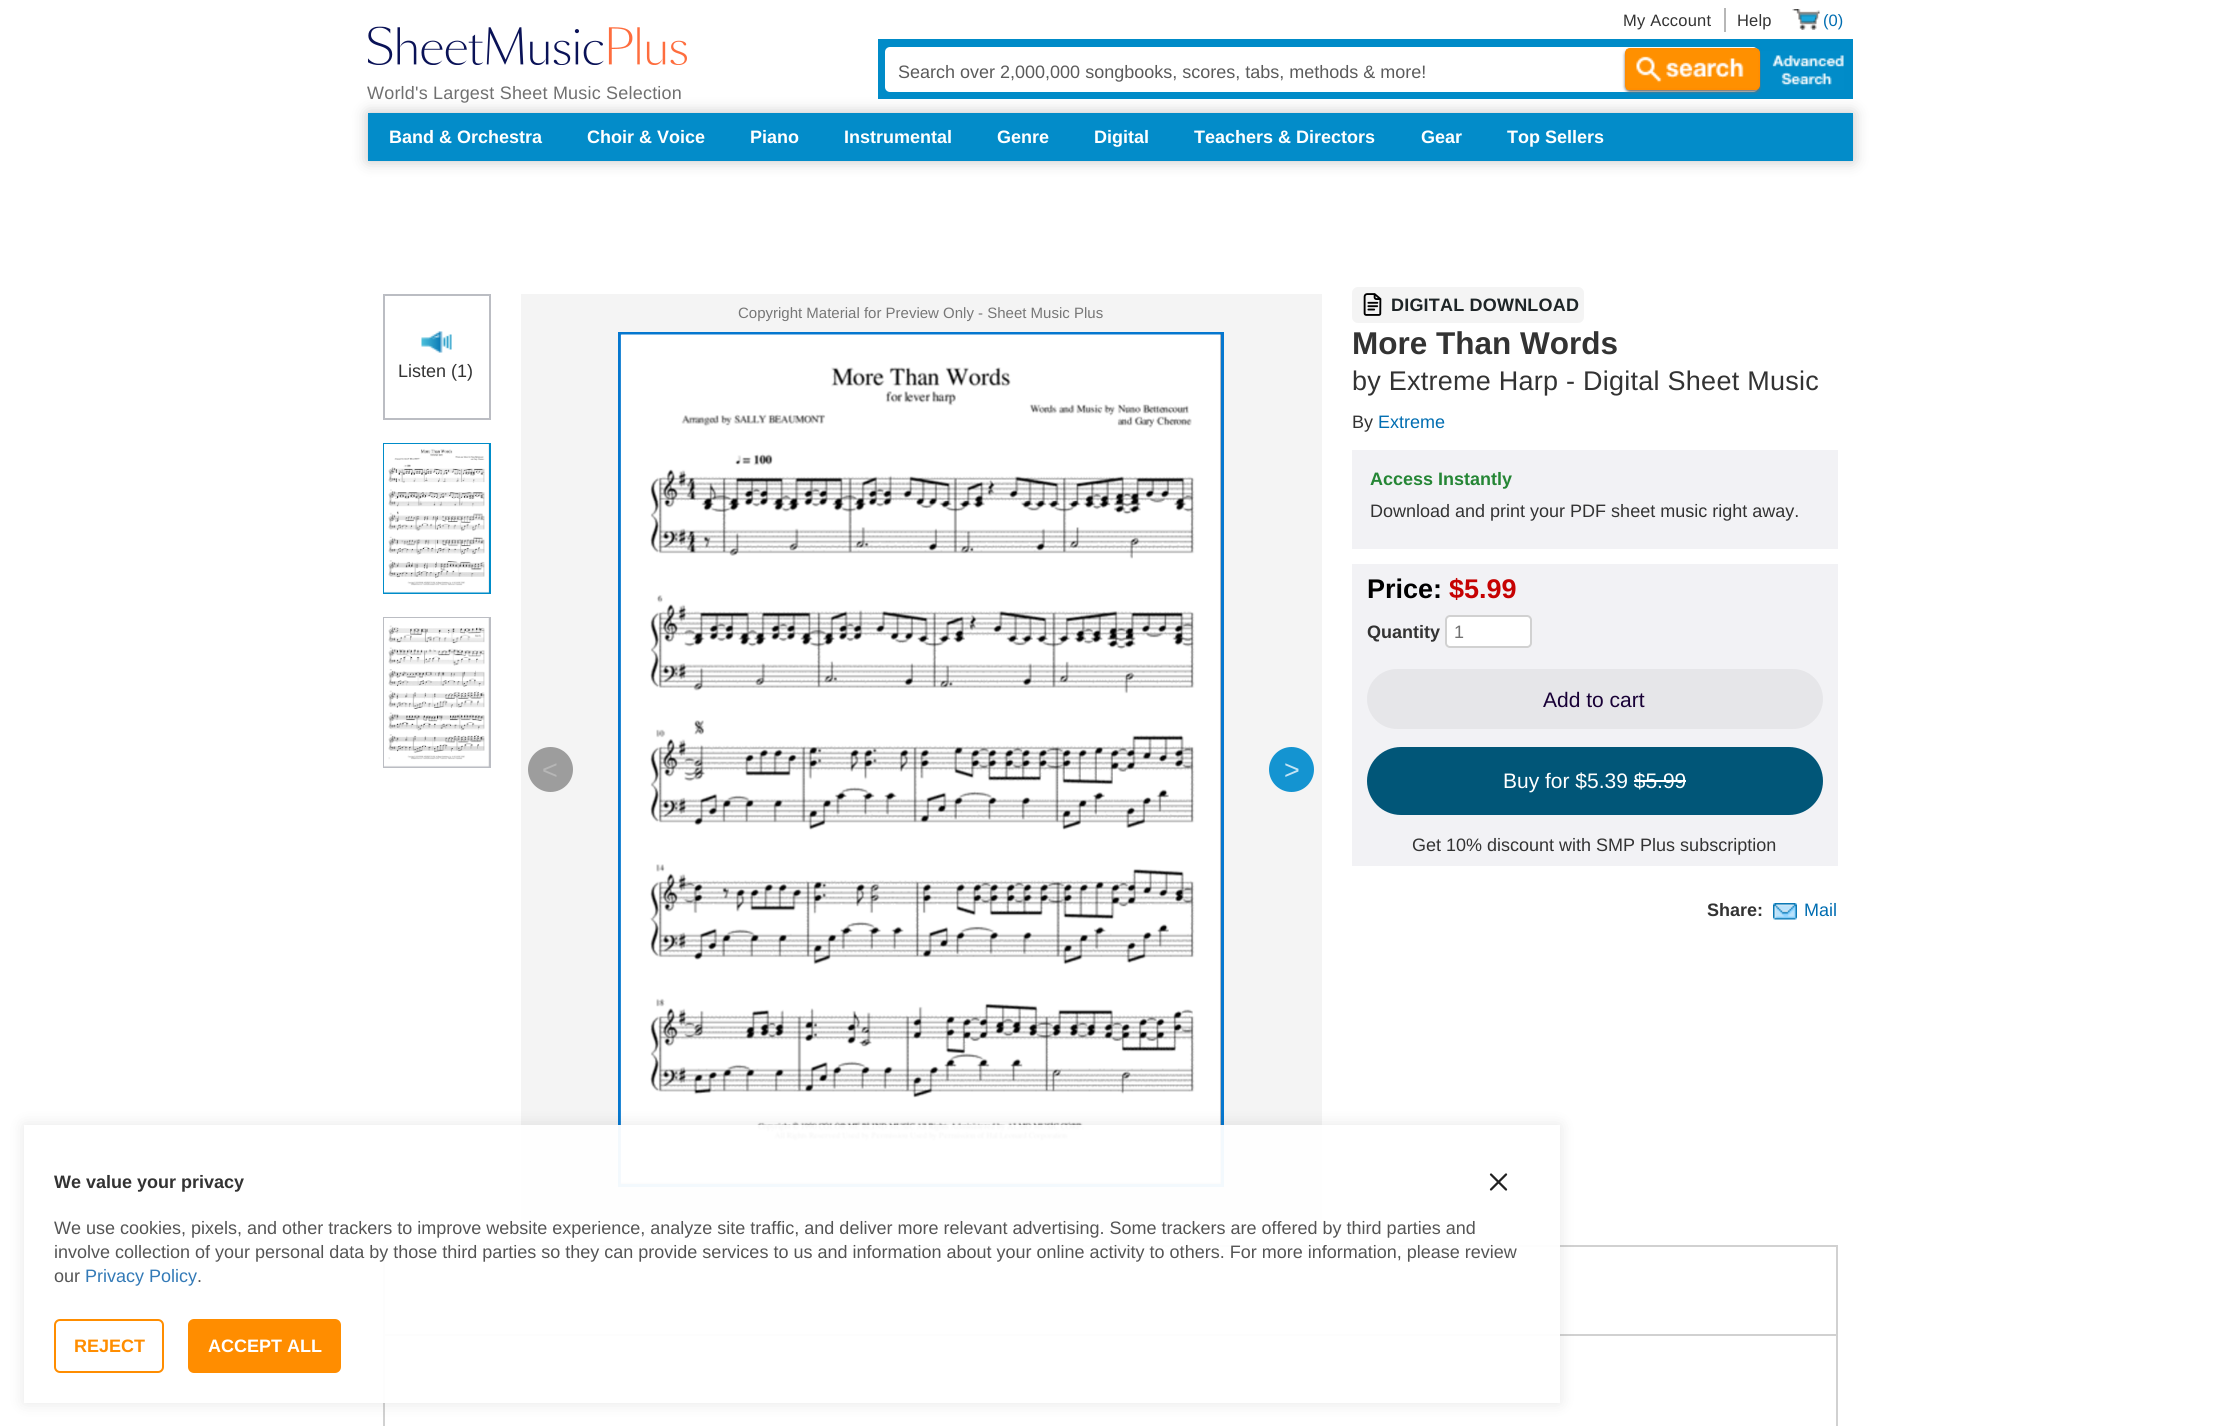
#include <cairo.h>
#include <math.h>
#include <stddef.h>


static void set_color(cairo_t *cr, unsigned color) {
    cairo_set_source_rgb(cr, (color >> 16) / 255.0, (color >> 8 & 255) / 255.0, (color & 255) / 255.0);
}

static void draw_text(cairo_t *cr, double x, double y, const char *s, const char *family, double size, int italic, int bold, unsigned color) {
    cairo_select_font_face(cr, family, italic ? CAIRO_FONT_SLANT_ITALIC : CAIRO_FONT_SLANT_NORMAL,
        bold ? CAIRO_FONT_WEIGHT_BOLD : CAIRO_FONT_WEIGHT_NORMAL);
    cairo_set_font_size(cr, size);
    set_color(cr, color);
    cairo_move_to(cr, x, y);
    cairo_show_text(cr, s);
}

static void draw_spaced(cairo_t *cr, double x, double y, const char *s, double letter, double word) {
    cairo_move_to(cr, x, y);
    while (*s) {
        char ch[5] = {0};
        int n = 0;
        do ch[n++] = *s++; while ((*s & 0xC0) == 0x80);
        cairo_show_text(cr, ch);
        cairo_rel_move_to(cr, letter + word * (*ch == ' '), 0);
    }
}

static void fill_rect(cairo_t *cr, double x, double y, double w, double h, unsigned color) {
    set_color(cr, color);
    cairo_rectangle(cr, x, y, w, h);
    cairo_fill(cr);
}

static void rounded_rect(cairo_t *cr, double x, double y, double w, double h, double r) {
    cairo_new_sub_path(cr);
    cairo_arc(cr, x + w - r, y + h - r, r, 0, M_PI / 2);
    cairo_arc(cr, x + r, y + h - r, r, M_PI / 2, M_PI);
    cairo_arc(cr, x + r, y + r, r, M_PI, 1.5 * M_PI);
    cairo_arc(cr, x + w - r, y + r, r, 1.5 * M_PI, 2 * M_PI);
    cairo_close_path(cr);
}

static void draw_shadow(cairo_t *cr, double x, double y, double w, double h, double r, double blur, double alpha) {
    cairo_push_group_with_content(cr, CAIRO_CONTENT_ALPHA);
    cairo_set_operator(cr, CAIRO_OPERATOR_SOURCE);
    for (int i = 15; i >= -15 && fmin(w, h) + blur * i / 3 > 0; i -= 2) {
        double e = blur * i / 6;
        cairo_set_source_rgba(cr, 0, 0, 0, alpha * erfc((i - 1) / 8.5) / 2);
        rounded_rect(cr, x - e, y - e, w + 2 * e, h + 2 * e, fmax(0, fmin(r + e + blur * .6, fmin(w, h) / 2 + e)));
        cairo_fill(cr);
    }
    cairo_pattern_t *soft = cairo_pop_group(cr);
    cairo_mask(cr, soft);
    cairo_pattern_destroy(soft);
}

static void draw_image(cairo_t *cr, const char *path, double x, double y, double w, double h) {
    cairo_surface_t *image = cairo_image_surface_create_from_png(path);
    cairo_save(cr);
    cairo_set_source_surface(cr, image, x, y);
    cairo_rectangle(cr, x, y, w, h);
    cairo_fill(cr);
    cairo_restore(cr);
    cairo_surface_destroy(image);
}

int main(void) {
    cairo_surface_t *surface = cairo_image_surface_create(CAIRO_FORMAT_RGB24, 2218, 1426);
    cairo_t *cr = cairo_create(surface);
    cairo_font_options_t *options = cairo_font_options_create();
    cairo_font_options_set_hint_metrics(options, CAIRO_HINT_METRICS_OFF);
    cairo_font_options_set_hint_style(options, CAIRO_HINT_STYLE_NONE);
    cairo_set_font_options(cr, options);
    cairo_set_miter_limit(cr, 4);
    set_color(cr, 0xFFFFFF);
    cairo_paint(cr);
    fill_rect(cr, 1724, 8, 2, 24, 0xB7B7B7);
    cairo_select_font_face(cr, "Liberation Sans", CAIRO_FONT_SLANT_NORMAL, CAIRO_FONT_WEIGHT_NORMAL);
    cairo_set_font_size(cr, 16.5);
    set_color(cr, 0x333333);
    draw_spaced(cr, 1623, 26, "My Account", 0.2, 0);
    draw_spaced(cr, 1737, 26, "Help", 0.2, 0);
    draw_image(cr, "assets/img1.png", 1792, 9, 28, 21);
    draw_text(cr, 1823, 26, "(0)", "Liberation Sans", 16.5, 0, 0, 0x006DB1);
    set_color(cr, 0xC3C3C3);
    draw_shadow(cr, 368, 113, 1485, 48, 0, 7.5, 1);
    fill_rect(cr, 878, 39, 975, 60, 0x008BC8);
    set_color(cr, 0xFFFFFF);
    rounded_rect(cr, 885, 47, 873, 45, 5);
    cairo_fill(cr);
    draw_text(cr, 898, 78, "Search over 2,000,000 songbooks, scores, tabs, methods & more!", "Liberation Sans", 18, 0, 0, 0x5B5B5B);
    set_color(cr, 0x707070);
    draw_shadow(cr, 1625, 50, 135, 42, 5, 1.5, 1);
    draw_image(cr, "assets/img2.png", 1626, 49, 134, 41);
    rounded_rect(cr, 1626, 49, 133, 40, 4);
    set_color(cr, 0xFF8D00);
    cairo_stroke(cr);
    draw_image(cr, "assets/img3.png", 1761, 51, 83, 39);
    draw_image(cr, "assets/img4.png", 368, 26, 319, 39);
    set_color(cr, 0x707070);
    draw_spaced(cr, 367, 99, "World's Largest Sheet Music Selection", 0.2, 0);
    fill_rect(cr, 368, 113, 1485, 48, 0x038CC9);
    draw_text(cr, 389, 143, "Band & Orchestra", "Liberation Sans", 18, 0, 1, 0xFFFFFF);
    draw_text(cr, 587, 143, "Choir & Voice", "Liberation Sans", 18, 0, 1, 0xFFFFFF);
    draw_text(cr, 750, 143, "Piano", "Liberation Sans", 18, 0, 1, 0xFFFFFF);
    draw_text(cr, 844, 143, "Instrumental", "Liberation Sans", 18, 0, 1, 0xFFFFFF);
    draw_text(cr, 997, 143, "Genre", "Liberation Sans", 18, 0, 1, 0xFFFFFF);
    draw_text(cr, 1094, 143, "Digital", "Liberation Sans", 18, 0, 1, 0xFFFFFF);
    draw_text(cr, 1194, 143, "Teachers & Directors", "Liberation Sans", 18, 0, 1, 0xFFFFFF);
    draw_text(cr, 1421, 143, "Gear", "Liberation Sans", 18, 0, 1, 0xFFFFFF);
    draw_text(cr, 1507, 143, "Top Sellers", "Liberation Sans", 18, 0, 1, 0xFFFFFF);
    cairo_rectangle(cr, 384, 295, 106, 124);
    set_color(cr, 0xBBBDC3);
    cairo_stroke(cr);
    draw_image(cr, "assets/img5.png", 421, 331, 31, 22);
    draw_text(cr, 398, 377, "Listen (1)", "Liberation Sans", 18, 0, 0, 0x333333);
    cairo_rectangle(cr, 384, 444, 106, 149);
    set_color(cr, 0x008CC9);
    cairo_stroke(cr);
    draw_image(cr, "assets/img6.png", 384, 444, 105, 149);
    cairo_rectangle(cr, 384, 618, 106, 149);
    set_color(cr, 0xBBBDC3);
    cairo_stroke(cr);
    draw_image(cr, "assets/img7.png", 384, 618, 105, 149);
    fill_rect(cr, 521, 294, 801, 936, 0xF4F4F4);
    draw_text(cr, 738, 318, "Copyright Material for Preview Only - Sheet Music Plus", "Liberation Sans", 15, 0, 0, 0x777777);
    set_color(cr, 0x9D9D9D);
    cairo_new_path(cr);
    cairo_arc(cr, 550.5, 769.5, 22.5, 0, 2 * M_PI);
    cairo_fill(cr);
    draw_text(cr, 542, 779, "<", "Liberation Sans", 27, 0, 0, 0xB6B6B6);
    set_color(cr, 0xFFFFFF);
    cairo_rectangle(cr, 619.5, 333.5, 603, 852);
    cairo_fill_preserve(cr);
    set_color(cr, 0x0577CF);
    cairo_set_line_width(cr, 3);
    cairo_stroke(cr);
    draw_image(cr, "assets/img8.png", 620, 334, 601, 850);
    set_color(cr, 0x1494D1);
    cairo_arc(cr, 1291.5, 769.5, 22.5, 0, 2 * M_PI);
    cairo_fill(cr);
    draw_text(cr, 1284, 779, ">", "Liberation Sans", 27, 0, 0, 0xC4E4F4);
    set_color(cr, 0xF4F4F4);
    rounded_rect(cr, 1352, 287, 232, 36, 6);
    cairo_fill(cr);
    draw_image(cr, "assets/img9.png", 1363, 293, 19, 23);
    cairo_select_font_face(cr, "Liberation Sans", CAIRO_FONT_SLANT_NORMAL, CAIRO_FONT_WEIGHT_BOLD);
    cairo_set_font_size(cr, 18);
    set_color(cr, 0x1E2527);
    draw_spaced(cr, 1391, 311, "DIGITAL DOWNLOAD", 0.2, 0);
    draw_text(cr, 1352, 354, "More Than Words", "Liberation Sans", 31.5, 0, 1, 0x333333);
    cairo_select_font_face(cr, "Liberation Sans", CAIRO_FONT_SLANT_NORMAL, CAIRO_FONT_WEIGHT_NORMAL);
    cairo_set_font_size(cr, 27);
    draw_spaced(cr, 1352, 390, "by Extreme Harp - Digital Sheet Music", 0.25, 0);
    draw_text(cr, 1352, 428, "By", "Liberation Sans", 18, 0, 0, 0x333333);
    draw_text(cr, 1378, 428, "Extreme", "Liberation Sans", 18, 0, 0, 0x006DB1);
    fill_rect(cr, 1352, 450, 486, 99, 0xF2F2F5);
    draw_text(cr, 1370, 485, "Access Instantly", "Liberation Sans", 18, 0, 1, 0x258635);
    draw_text(cr, 1370, 517, "Download and print your PDF sheet music right away.", "Liberation Sans", 18, 0, 0, 0x333333);
    fill_rect(cr, 1352, 564, 486, 302, 0xF2F2F5);
    draw_text(cr, 1367, 598, "Price:", "Liberation Sans", 27, 0, 1, 0x000000);
    draw_text(cr, 1449, 598, "$5.99", "Liberation Sans", 27, 0, 1, 0xC60202);
    draw_text(cr, 1367, 638, "Quantity", "Liberation Sans", 18, 0, 1, 0x333333);
    set_color(cr, 0xFFFFFF);
    rounded_rect(cr, 1446, 616, 85, 31, 4);
    cairo_fill_preserve(cr);
    set_color(cr, 0xD1D1D1);
    cairo_set_line_width(cr, 2);
    cairo_stroke(cr);
    draw_text(cr, 1454, 638, "1", "Liberation Sans", 18, 0, 0, 0x707070);
    set_color(cr, 0xE6E6E9);
    rounded_rect(cr, 1367, 669, 456, 60, 30);
    cairo_fill(cr);
    draw_text(cr, 1543, 707, "Add to cart", "Liberation Sans", 21, 0, 0, 0x180036);
    set_color(cr, 0x015678);
    rounded_rect(cr, 1367, 747, 456, 68, 34);
    cairo_fill(cr);
    draw_text(cr, 1503, 788, "Buy for $5.39 $5.99", "Liberation Sans", 21, 0, 0, 0xFFFFFF);
    fill_rect(cr, 1634, 780, 52, 2, 0xFFFFFF);
    draw_text(cr, 1412, 851, "Get 10% discount with SMP Plus subscription", "Liberation Sans", 18, 0, 0, 0x333333);
    draw_text(cr, 1707, 916, "Share:", "Liberation Sans", 18, 0, 1, 0x333333);
    draw_image(cr, "assets/img10.png", 1773, 903, 24, 17);
    draw_text(cr, 1804, 916, "Mail", "Liberation Sans", 18, 0, 0, 0x006DB1);
    cairo_rectangle(cr, 384, 1246, 1453, 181);
    set_color(cr, 0xD1D1D1);
    cairo_stroke(cr);
    fill_rect(cr, 384, 1334, 1452, 2, 0xD1D1D1);
    cairo_save(cr);
    cairo_set_fill_rule(cr, CAIRO_FILL_RULE_EVEN_ODD);
    cairo_new_path(cr);
    cairo_move_to(cr, 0, 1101);
    cairo_line_to(cr, 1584, 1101);
    cairo_line_to(cr, 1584, 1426);
    cairo_line_to(cr, 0, 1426);
    cairo_close_path(cr);
    cairo_move_to(cr, 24, 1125);
    cairo_line_to(cr, 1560, 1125);
    cairo_line_to(cr, 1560, 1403);
    cairo_line_to(cr, 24, 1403);
    cairo_close_path(cr);
    cairo_clip(cr);
    set_color(cr, 0x000000);
    draw_shadow(cr, 24, 1125, 1536, 278, 0, 7.5, 0.1);
    cairo_restore(cr);
    cairo_set_source_rgba(cr, 1, 1, 1, 0.95);
    cairo_rectangle(cr, 24, 1125, 1536, 278);
    cairo_fill(cr);
    draw_text(cr, 54, 1188, "We value your privacy", "Liberation Sans", 18, 0, 1, 0x333333);
    draw_image(cr, "assets/img11.png", 1489, 1173, 19, 18);
    draw_text(cr, 54, 1234, "We use cookies, pixels, and other trackers to improve website experience, analyze site traffic, and deliver more relevant advertising. Some trackers are offered by third parties and", "Liberation Sans", 18, 0, 0, 0x555555);
    draw_text(cr, 54, 1258, "involve collection of your personal data by those third parties so they can provide services to us and information about your online activity to others. For more information, please review", "Liberation Sans", 18, 0, 0, 0x555555);
    draw_text(cr, 54, 1282, "our", "Liberation Sans", 18, 0, 0, 0x555555);
    draw_text(cr, 85, 1282, "Privacy Policy", "Liberation Sans", 18, 0, 0, 0x337AB7);
    draw_text(cr, 197, 1282, ".", "Liberation Sans", 18, 0, 0, 0x555555);
    rounded_rect(cr, 55, 1320, 108, 52, 5);
    set_color(cr, 0xFF8D00);
    cairo_stroke(cr);
    draw_text(cr, 74, 1352, "REJECT", "Liberation Sans", 18, 0, 1, 0xFF8D00);
    rounded_rect(cr, 188, 1319, 153, 54, 6);
    cairo_fill(cr);
    draw_text(cr, 208, 1352, "ACCEPT ALL", "Liberation Sans", 18, 0, 1, 0xFFFFFF);
    cairo_surface_write_to_png(surface, "output.png");
    cairo_font_options_destroy(options);
    cairo_destroy(cr);
    cairo_surface_destroy(surface);
    return 0;
}
